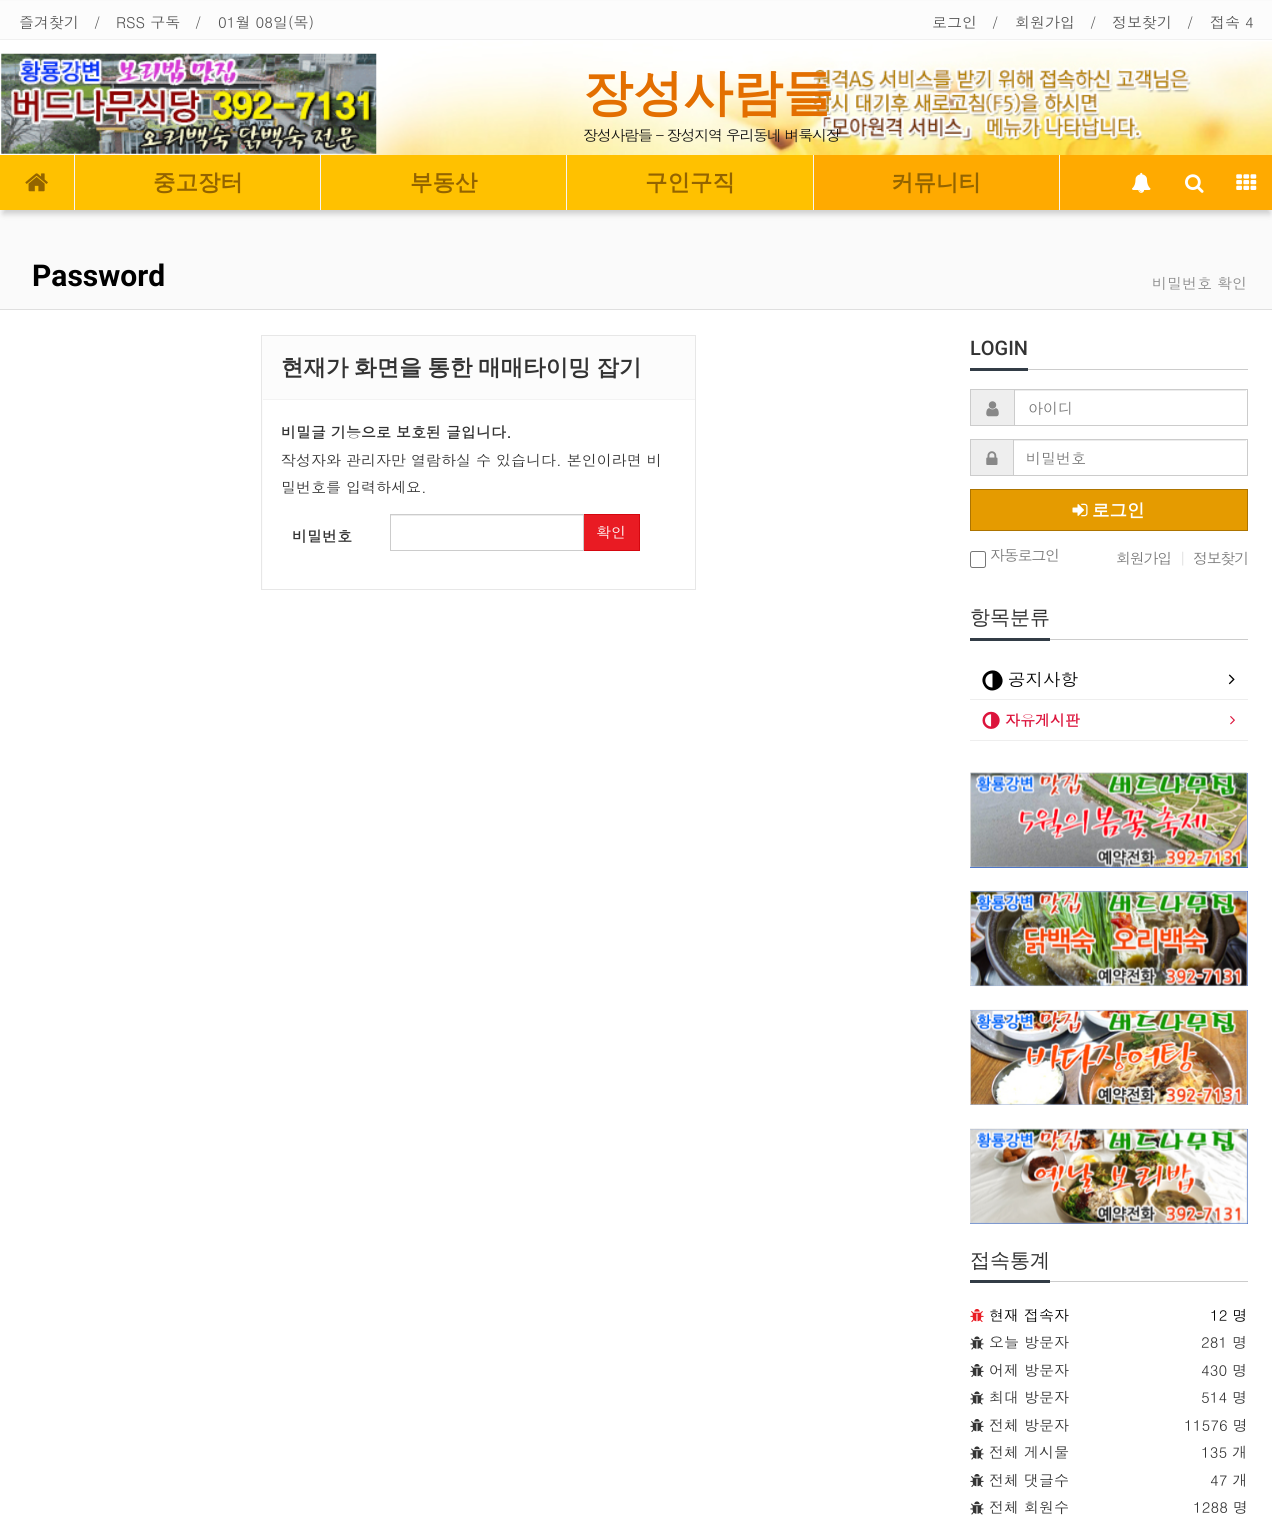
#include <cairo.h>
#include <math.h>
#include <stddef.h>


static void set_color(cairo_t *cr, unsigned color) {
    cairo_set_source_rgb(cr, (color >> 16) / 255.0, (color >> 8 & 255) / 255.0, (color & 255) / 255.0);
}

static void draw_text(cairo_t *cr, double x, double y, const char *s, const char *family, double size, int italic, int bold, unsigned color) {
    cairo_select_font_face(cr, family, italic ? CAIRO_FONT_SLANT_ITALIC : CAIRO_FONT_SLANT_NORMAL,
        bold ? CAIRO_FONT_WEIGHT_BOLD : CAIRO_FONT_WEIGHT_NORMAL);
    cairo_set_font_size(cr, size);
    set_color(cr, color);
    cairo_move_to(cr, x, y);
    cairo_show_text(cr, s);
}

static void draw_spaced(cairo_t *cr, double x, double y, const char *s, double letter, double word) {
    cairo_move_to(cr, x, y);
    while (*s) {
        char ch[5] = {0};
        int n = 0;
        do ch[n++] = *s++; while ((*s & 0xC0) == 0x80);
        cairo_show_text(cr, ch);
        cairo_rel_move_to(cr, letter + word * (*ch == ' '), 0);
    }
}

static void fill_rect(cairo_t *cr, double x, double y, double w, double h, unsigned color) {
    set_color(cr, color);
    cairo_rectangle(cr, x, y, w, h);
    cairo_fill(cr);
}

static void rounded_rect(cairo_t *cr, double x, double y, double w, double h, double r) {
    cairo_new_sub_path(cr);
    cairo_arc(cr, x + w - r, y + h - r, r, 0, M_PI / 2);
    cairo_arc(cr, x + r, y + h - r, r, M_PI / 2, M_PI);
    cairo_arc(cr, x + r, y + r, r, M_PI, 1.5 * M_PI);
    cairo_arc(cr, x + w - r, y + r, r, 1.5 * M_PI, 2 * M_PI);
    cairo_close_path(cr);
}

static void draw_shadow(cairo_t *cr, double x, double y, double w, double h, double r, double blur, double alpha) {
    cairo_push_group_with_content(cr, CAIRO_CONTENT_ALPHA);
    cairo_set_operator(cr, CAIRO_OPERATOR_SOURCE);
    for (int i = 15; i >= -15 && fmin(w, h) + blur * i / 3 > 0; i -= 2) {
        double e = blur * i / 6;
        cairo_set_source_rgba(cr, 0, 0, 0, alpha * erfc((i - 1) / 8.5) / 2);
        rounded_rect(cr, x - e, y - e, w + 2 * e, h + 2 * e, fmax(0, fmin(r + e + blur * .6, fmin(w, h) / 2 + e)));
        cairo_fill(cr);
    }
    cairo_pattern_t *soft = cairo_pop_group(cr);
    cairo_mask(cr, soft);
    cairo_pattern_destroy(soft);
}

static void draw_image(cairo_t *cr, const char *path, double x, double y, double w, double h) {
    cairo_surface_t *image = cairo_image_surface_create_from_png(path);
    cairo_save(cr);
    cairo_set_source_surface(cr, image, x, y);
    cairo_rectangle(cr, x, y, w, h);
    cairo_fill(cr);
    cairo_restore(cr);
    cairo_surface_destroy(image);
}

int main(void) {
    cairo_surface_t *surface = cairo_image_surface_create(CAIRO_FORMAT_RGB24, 1272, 1520);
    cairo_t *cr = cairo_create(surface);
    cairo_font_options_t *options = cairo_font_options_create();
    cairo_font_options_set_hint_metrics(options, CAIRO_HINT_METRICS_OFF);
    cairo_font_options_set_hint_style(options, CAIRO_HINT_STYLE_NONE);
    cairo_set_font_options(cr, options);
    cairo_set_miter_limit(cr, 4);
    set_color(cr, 0xFFFFFF);
    cairo_paint(cr);
    fill_rect(cr, 0, 1, 1272, 38, 0xFCFCFC);
    fill_rect(cr, 0, 0, 1272, 1, 0xFAFAFA);
    fill_rect(cr, 0, 39, 1272, 1, 0xF0F0F0);
    draw_text(cr, 19, 28, "즐겨찾기", "Dotum", 15, 0, 0, 0x525252);
    draw_text(cr, 94, 28, "/", "Dotum", 15, 0, 0, 0x525252);
    draw_text(cr, 116, 28, "RSS 구독", "Dotum", 15, 0, 0, 0x525252);
    draw_text(cr, 195, 28, "/", "Dotum", 15, 0, 0, 0x525252);
    draw_text(cr, 218, 28, "01월 08일(목)", "Dotum", 15, 0, 0, 0x525252);
    draw_text(cr, 932, 28, "로그인", "Dotum", 15, 0, 0, 0x525252);
    draw_text(cr, 992, 28, "/", "Dotum", 15, 0, 0, 0x525252);
    draw_text(cr, 1015, 28, "회원가입", "Dotum", 15, 0, 0, 0x525252);
    draw_text(cr, 1090, 28, "/", "Dotum", 15, 0, 0, 0x525252);
    draw_text(cr, 1112, 28, "정보찾기", "Dotum", 15, 0, 0, 0x525252);
    draw_text(cr, 1187, 28, "/", "Dotum", 15, 0, 0, 0x525252);
    draw_text(cr, 1210, 28, "접속 4", "Dotum", 15, 0, 0, 0x525252);
    draw_image(cr, "assets/img1.png", 256, 41, 1016, 114);
    draw_image(cr, "assets/img2.png", 1, 53, 376, 101);
    draw_text(cr, 583, 110, "장성사람들", "WenQuanYi Zen Hei", 50, 0, 1, 0xE36F00);
    cairo_select_font_face(cr, "Dotum", CAIRO_FONT_SLANT_NORMAL, CAIRO_FONT_WEIGHT_NORMAL);
    cairo_set_font_size(cr, 15);
    set_color(cr, 0x111111);
    draw_spaced(cr, 583, 141, "장성사람들 - 장성지역 우리동네 벼룩시장", -1.25, 0);
    fill_rect(cr, 0, 210, 1272, 99, 0xFAFAFA);
    set_color(cr, 0x191919);
    draw_shadow(cr, 3, 164, 1267, 50, 0, 3, 0.2);
    fill_rect(cr, 0, 155, 74, 55, 0xFFC100);
    fill_rect(cr, 74, 155, 1, 55, 0xF5F5F5);
    draw_image(cr, "assets/img3.png", 25, 173, 23, 19);
    fill_rect(cr, 75, 155, 245, 55, 0xFFC100);
    fill_rect(cr, 320, 155, 1, 55, 0xF5F5F5);
    draw_text(cr, 153, 190, "중고장터", "WenQuanYi Zen Hei", 22.5, 0, 1, 0x936400);
    fill_rect(cr, 321, 155, 492, 55, 0xFFC100);
    fill_rect(cr, 566, 155, 1, 55, 0xF5F5F5);
    draw_text(cr, 410, 190, "부동산", "WenQuanYi Zen Hei", 22.5, 0, 1, 0x936400);
    fill_rect(cr, 813, 155, 1, 55, 0xF5F5F5);
    draw_text(cr, 645, 190, "구인구직", "WenQuanYi Zen Hei", 22.5, 0, 1, 0x936400);
    fill_rect(cr, 814, 155, 245, 55, 0xFFAA00);
    fill_rect(cr, 1059, 155, 1, 55, 0xF5F5F5);
    draw_text(cr, 891, 190, "커뮤니티", "WenQuanYi Zen Hei", 22.5, 0, 1, 0x936400);
    fill_rect(cr, 1060, 155, 212, 55, 0xFFAA00);
    draw_image(cr, "assets/img4.png", 1132, 172, 19, 21);
    draw_image(cr, "assets/img5.png", 1185, 174, 19, 19);
    draw_image(cr, "assets/img6.png", 1236, 174, 21, 16);
    fill_rect(cr, 0, 309, 1272, 1, 0xDFDFDF);
    draw_text(cr, 32, 286, "Password", "Roboto", 30, 0, 1, 0x000000);
    draw_text(cr, 1152, 289, "비밀번호 확인", "Dotum", 15, 0, 0, 0x888888);
    set_color(cr, 0xFCFCFC);
    cairo_rectangle(cr, 261.5, 335.5, 434, 254);
    cairo_fill_preserve(cr);
    set_color(cr, 0xE7E7E7);
    cairo_set_line_width(cr, 1);
    cairo_stroke(cr);
    fill_rect(cr, 263, 399, 432, 1, 0xF3F3F3);
    cairo_select_font_face(cr, "WenQuanYi Zen Hei", CAIRO_FONT_SLANT_NORMAL, CAIRO_FONT_WEIGHT_BOLD);
    cairo_set_font_size(cr, 22.5);
    set_color(cr, 0x333333);
    draw_spaced(cr, 281, 375, "현재가 화면을 통한 매매타이밍 잡기", 0, -1);
    fill_rect(cr, 263, 400, 432, 189, 0xFFFFFF);
    draw_text(cr, 281, 438, "비밀글 기능으로 보호된 글입니다.", "Dotum", 15, 0, 1, 0x333333);
    draw_text(cr, 281, 466, "작성자와 관리자만 열람하실 수 있습니다. 본인이라면 비", "Dotum", 15, 0, 0, 0x333333);
    draw_text(cr, 281, 493, "밀번호를 입력하세요.", "Dotum", 15, 0, 0, 0x333333);
    draw_text(cr, 292, 542, "비밀번호", "Dotum", 15, 0, 1, 0x333333);
    fill_rect(cr, 391, 515, 192, 1, 0xECECEC);
    set_color(cr, 0xE91B23);
    cairo_rectangle(cr, 583.5, 514.5, 56, 36);
    cairo_fill_preserve(cr);
    set_color(cr, 0xD5070F);
    cairo_stroke(cr);
    cairo_rectangle(cr, 390.5, 514.5, 193, 36);
    set_color(cr, 0xCCCCCC);
    cairo_stroke(cr);
    draw_text(cr, 596, 538, "확인", "Dotum", 15, 0, 0, 0xFFFFFF);
    fill_rect(cr, 1028, 369, 220, 1, 0xCCCCCC);
    fill_rect(cr, 970, 368, 58, 3, 0x323C46);
    draw_text(cr, 970, 355, "LOGIN", "Roboto Medium", 20, 0, 0, 0x333333);
    fill_rect(cr, 971, 390, 43, 35, 0xEEEEEE);
    fill_rect(cr, 970, 389, 44, 1, 0xCCCCCC);
    fill_rect(cr, 970, 425, 44, 1, 0xCCCCCC);
    fill_rect(cr, 970, 389, 1, 37, 0xCCCCCC);
    draw_image(cr, "assets/img7.png", 986, 401, 13, 16);
    fill_rect(cr, 1015, 390, 231, 1, 0xECECEC);
    cairo_rectangle(cr, 1014.5, 389.5, 233, 36);
    set_color(cr, 0xCCCCCC);
    cairo_stroke(cr);
    draw_text(cr, 1028, 414, "아이디", "Dotum", 15, 0, 0, 0x777777);
    fill_rect(cr, 971, 440, 42, 35, 0xEEEEEE);
    fill_rect(cr, 970, 439, 43, 1, 0xCCCCCC);
    fill_rect(cr, 970, 475, 43, 1, 0xCCCCCC);
    fill_rect(cr, 970, 439, 1, 37, 0xCCCCCC);
    draw_image(cr, "assets/img8.png", 986, 451, 12, 14);
    fill_rect(cr, 1014, 440, 232, 1, 0xECECEC);
    cairo_rectangle(cr, 1013.5, 439.5, 234, 36);
    set_color(cr, 0xCCCCCC);
    cairo_stroke(cr);
    draw_text(cr, 1026, 464, "비밀번호", "Dotum", 15, 0, 0, 0x777777);
    set_color(cr, 0xE59B00);
    cairo_rectangle(cr, 970.5, 489.5, 277, 41);
    cairo_fill_preserve(cr);
    set_color(cr, 0xAD7400);
    cairo_stroke(cr);
    draw_image(cr, "assets/img9.png", 1072, 503, 16, 14);
    draw_text(cr, 1092, 516, "로그인", "WenQuanYi Zen Hei", 17.5, 0, 1, 0xFFFFFF);
    rounded_rect(cr, 970.5, 551.5, 15, 16, 2);
    set_color(cr, 0x767676);
    cairo_stroke(cr);
    cairo_select_font_face(cr, "Dotum", CAIRO_FONT_SLANT_NORMAL, CAIRO_FONT_WEIGHT_NORMAL);
    cairo_set_font_size(cr, 15);
    set_color(cr, 0x777777);
    draw_spaced(cr, 990, 561, "자동로그인", -1.25, 0);
    draw_spaced(cr, 1116, 564, "회원가입", -1.25, 0);
    set_color(cr, 0xDDDDDD);
    draw_spaced(cr, 1179, 564, "|", -1.25, 0);
    set_color(cr, 0x777777);
    draw_spaced(cr, 1193, 564, "정보찾기", -1.25, 0);
    fill_rect(cr, 1050, 639, 198, 1, 0xCCCCCC);
    fill_rect(cr, 970, 638, 80, 3, 0x323C46);
    draw_text(cr, 970, 624, "항목분류", "WenQuanYi Zen Hei Medium", 20, 0, 0, 0x333333);
    fill_rect(cr, 970, 699, 278, 1, 0xEEEEEE);
    set_color(cr, 0x000000);
    cairo_new_path(cr);
    cairo_move_to(cr, 992.5, 687.5);
    cairo_line_to(cr, 992.5, 673.5);
    cairo_curve_to(cr, 983, 673.5, 983, 687.5, 992.5, 687.5);
    cairo_close_path(cr);
    cairo_move_to(cr, 1001, 675.5);
    cairo_curve_to(cr, 1008, 686.5, 990.5, 697, 984, 685.5);
    cairo_curve_to(cr, 977, 674, 994.5, 664, 1001, 675.5);
    cairo_close_path(cr);
    cairo_fill(cr);
    draw_text(cr, 1008, 686, "공지사항", "Dotum", 17.5, 0, 0, 0x000000);
    draw_image(cr, "assets/img10.png", 1228, 674, 7, 11);
    fill_rect(cr, 970, 740, 278, 1, 0xEEEEEE);
    draw_image(cr, "assets/img11.png", 982, 711, 18, 18);
    draw_text(cr, 1005, 726, "자유게시판", "Dotum", 15, 0, 1, 0xDC143C);
    draw_image(cr, "assets/img12.png", 1230, 716, 5, 9);
    fill_rect(cr, 970, 773, 278, 95, 0x3366CC);
    draw_image(cr, "assets/img13.png", 970, 772, 278, 96);
    fill_rect(cr, 970, 891, 278, 95, 0x3366CC);
    draw_image(cr, "assets/img14.png", 970, 890, 278, 97);
    fill_rect(cr, 970, 1010, 278, 95, 0x3366CC);
    draw_image(cr, "assets/img15.png", 970, 1009, 278, 96);
    fill_rect(cr, 970, 1129, 278, 95, 0x3366CC);
    draw_image(cr, "assets/img16.png", 970, 1128, 278, 96);
    fill_rect(cr, 1050, 1281, 198, 1, 0xCCCCCC);
    fill_rect(cr, 970, 1280, 80, 3, 0x323C46);
    draw_text(cr, 970, 1267, "접속통계", "WenQuanYi Zen Hei Medium", 20, 0, 0, 0x333333);
    draw_image(cr, "assets/img17.png", 970, 1309, 14, 13);
    draw_text(cr, 989, 1321, "현재 접속자", "Dotum", 15, 0, 0, 0x000000);
    draw_text(cr, 1210, 1321, "12 명", "Dotum", 15, 0, 0, 0x000000);
    draw_image(cr, "assets/img18.png", 970, 1336, 14, 14);
    draw_text(cr, 989, 1348, "오늘 방문자", "Dotum", 15, 0, 0, 0x333333);
    draw_text(cr, 1201, 1348, "281 명", "Dotum", 15, 0, 0, 0x333333);
    draw_image(cr, "assets/img19.png", 970, 1364, 14, 13);
    draw_text(cr, 989, 1376, "어제 방문자", "Dotum", 15, 0, 0, 0x333333);
    draw_text(cr, 1201, 1376, "430 명", "Dotum", 15, 0, 0, 0x333333);
    draw_image(cr, "assets/img18.png", 970, 1391, 14, 14);
    draw_text(cr, 989, 1403, "최대 방문자", "Dotum", 15, 0, 0, 0x333333);
    draw_text(cr, 1201, 1403, "514 명", "Dotum", 15, 0, 0, 0x333333);
    draw_image(cr, "assets/img19.png", 970, 1419, 14, 13);
    draw_text(cr, 989, 1431, "전체 방문자", "Dotum", 15, 0, 0, 0x333333);
    draw_text(cr, 1184, 1431, "11576 명", "Dotum", 15, 0, 0, 0x333333);
    draw_image(cr, "assets/img18.png", 970, 1446, 14, 14);
    draw_text(cr, 989, 1458, "전체 게시물", "Dotum", 15, 0, 0, 0x333333);
    draw_text(cr, 1201, 1458, "135 개", "Dotum", 15, 0, 0, 0x333333);
    draw_image(cr, "assets/img19.png", 970, 1474, 14, 13);
    draw_text(cr, 989, 1486, "전체 댓글수", "Dotum", 15, 0, 0, 0x333333);
    draw_text(cr, 1210, 1486, "47 개", "Dotum", 15, 0, 0, 0x333333);
    draw_image(cr, "assets/img18.png", 970, 1501, 14, 14);
    draw_text(cr, 989, 1513, "전체 회원수", "Dotum", 15, 0, 0, 0x333333);
    draw_text(cr, 1193, 1513, "1288 명", "Dotum", 15, 0, 0, 0x333333);
    cairo_surface_write_to_png(surface, "output.png");
    cairo_font_options_destroy(options);
    cairo_destroy(cr);
    cairo_surface_destroy(surface);
    return 0;
}
